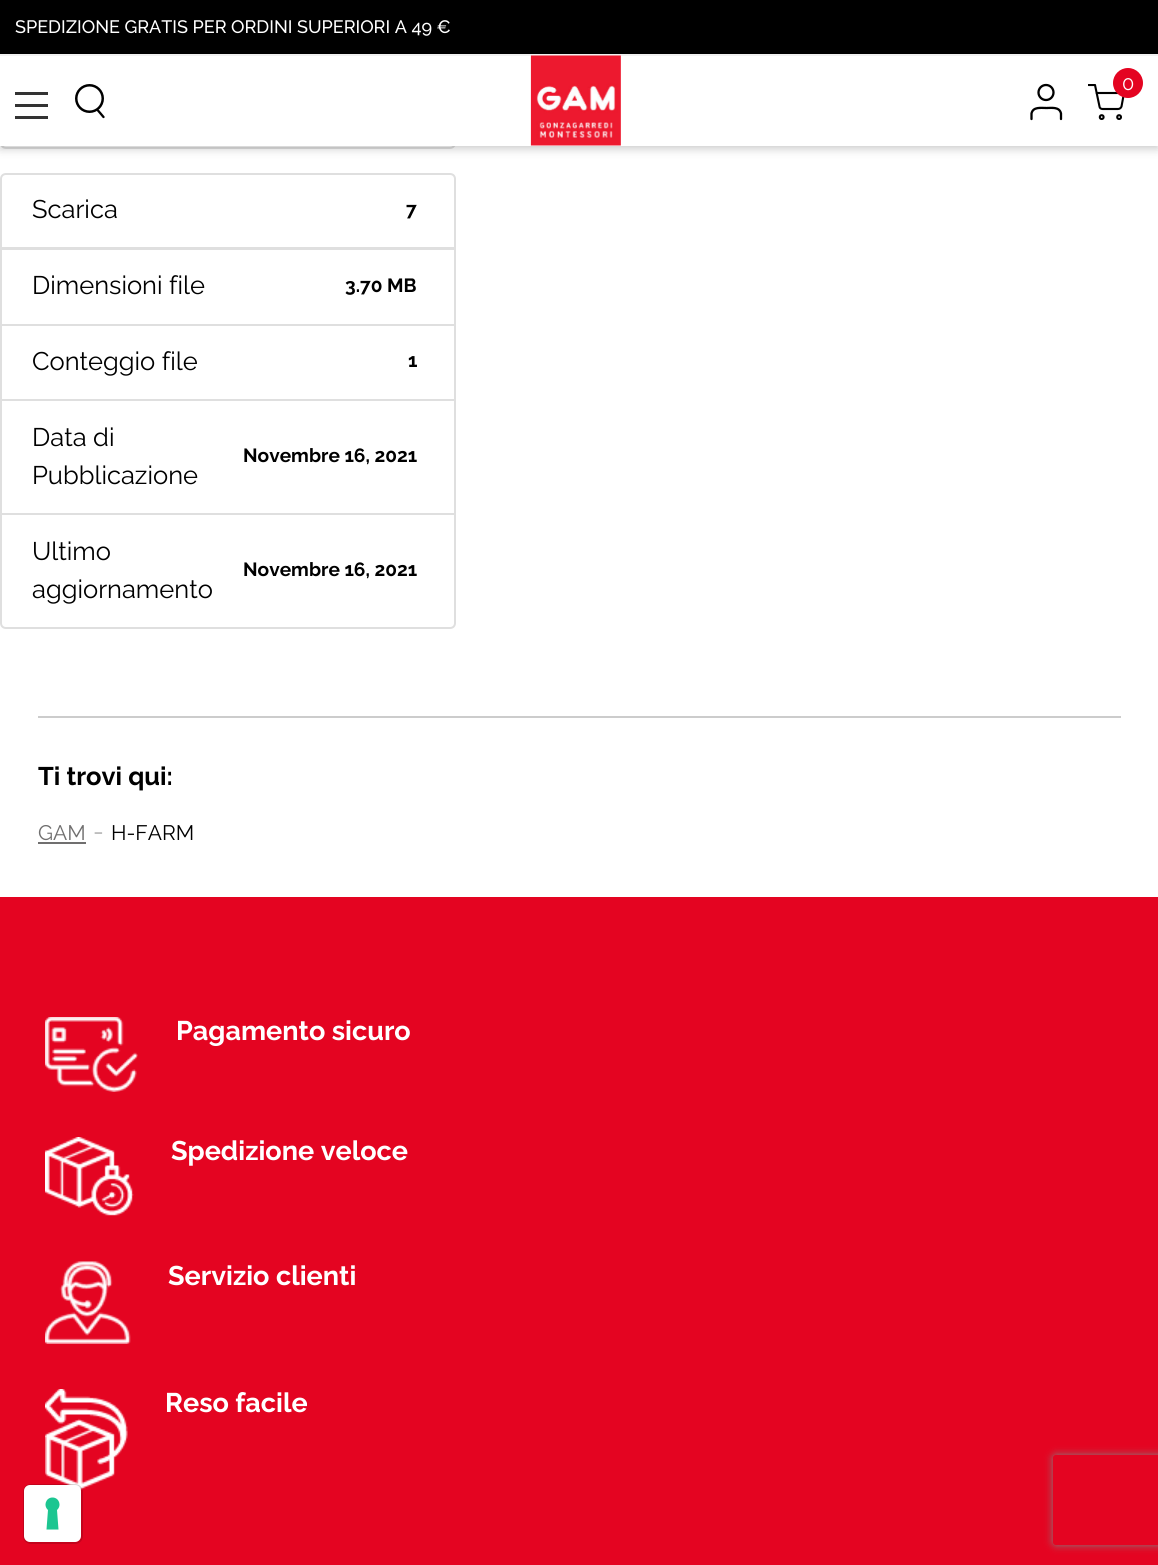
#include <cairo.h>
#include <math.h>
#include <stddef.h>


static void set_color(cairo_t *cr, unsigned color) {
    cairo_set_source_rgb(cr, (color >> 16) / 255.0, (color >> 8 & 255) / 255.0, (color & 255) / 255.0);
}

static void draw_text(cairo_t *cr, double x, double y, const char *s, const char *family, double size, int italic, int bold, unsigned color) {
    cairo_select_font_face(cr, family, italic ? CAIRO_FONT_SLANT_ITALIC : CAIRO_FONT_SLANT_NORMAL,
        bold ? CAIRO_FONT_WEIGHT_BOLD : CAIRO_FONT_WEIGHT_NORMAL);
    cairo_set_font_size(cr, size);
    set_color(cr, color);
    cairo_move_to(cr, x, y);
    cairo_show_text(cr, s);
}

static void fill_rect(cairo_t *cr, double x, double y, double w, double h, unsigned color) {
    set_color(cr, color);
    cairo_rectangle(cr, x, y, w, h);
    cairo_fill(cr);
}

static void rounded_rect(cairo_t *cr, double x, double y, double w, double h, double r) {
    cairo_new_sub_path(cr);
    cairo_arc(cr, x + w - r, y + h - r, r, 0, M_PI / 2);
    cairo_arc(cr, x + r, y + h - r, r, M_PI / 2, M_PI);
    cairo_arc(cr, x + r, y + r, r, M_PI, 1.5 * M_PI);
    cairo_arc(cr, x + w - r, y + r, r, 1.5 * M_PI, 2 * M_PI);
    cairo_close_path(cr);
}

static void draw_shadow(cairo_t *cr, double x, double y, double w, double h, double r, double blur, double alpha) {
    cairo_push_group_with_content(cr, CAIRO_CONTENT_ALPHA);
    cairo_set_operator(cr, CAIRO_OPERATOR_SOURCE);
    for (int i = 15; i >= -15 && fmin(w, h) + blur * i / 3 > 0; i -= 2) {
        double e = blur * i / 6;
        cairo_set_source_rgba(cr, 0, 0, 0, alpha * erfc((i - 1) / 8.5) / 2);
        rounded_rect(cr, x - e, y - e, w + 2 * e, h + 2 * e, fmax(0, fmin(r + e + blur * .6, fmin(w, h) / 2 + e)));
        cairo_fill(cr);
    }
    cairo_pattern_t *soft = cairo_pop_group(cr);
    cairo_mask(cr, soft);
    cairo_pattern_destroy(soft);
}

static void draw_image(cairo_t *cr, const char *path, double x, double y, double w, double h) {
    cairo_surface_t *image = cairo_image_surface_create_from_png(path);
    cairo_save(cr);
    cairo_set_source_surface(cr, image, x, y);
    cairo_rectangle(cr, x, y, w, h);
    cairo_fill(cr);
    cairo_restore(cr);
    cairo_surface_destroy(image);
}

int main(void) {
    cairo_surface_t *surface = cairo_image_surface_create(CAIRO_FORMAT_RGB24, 1158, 1565);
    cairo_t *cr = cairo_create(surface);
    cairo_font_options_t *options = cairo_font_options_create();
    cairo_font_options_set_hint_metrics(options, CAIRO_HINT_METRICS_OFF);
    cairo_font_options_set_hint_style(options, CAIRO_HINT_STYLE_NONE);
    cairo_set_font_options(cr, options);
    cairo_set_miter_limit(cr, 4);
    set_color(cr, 0xFFFFFF);
    cairo_paint(cr);
    rounded_rect(cr, 1, 42, 454, 106, 5);
    set_color(cr, 0xDFDFDF);
    cairo_stroke(cr);
    set_color(cr, 0x000000);
    draw_shadow(cr, 0, 3, 1158, 146, 0, 4.5, 0.2);
    fill_rect(cr, 0, 56, 1158, 90, 0xFFFFFF);
    fill_rect(cr, 0, 0, 1158, 54, 0x000000);
    fill_rect(cr, 0, 54, 1158, 2, 0xF1F1F1);
    draw_text(cr, 15, 33, "SPEDIZIONE GRATIS PER ORDINI SUPERIORI A 49 €", "Raleway Medium", 18, 0, 0, 0xFFFFFF);
    fill_rect(cr, 15, 92, 33, 3, 0x333333);
    fill_rect(cr, 15, 104, 33, 3, 0x333333);
    fill_rect(cr, 15, 116, 33, 3, 0x333333);
    cairo_new_path(cr);
    cairo_arc(cr, 89.5, 98.5, 13.25, 0, 2 * M_PI);
    set_color(cr, 0x000000);
    cairo_set_line_width(cr, 2.5);
    cairo_stroke(cr);
    cairo_new_path(cr);
    cairo_move_to(cr, 98, 110.5);
    cairo_line_to(cr, 103.5, 117);
    cairo_set_line_width(cr, 2.3);
    cairo_set_line_cap(cr, CAIRO_LINE_CAP_ROUND);
    cairo_stroke(cr);
    draw_image(cr, "assets/img1.png", 530, 55, 91, 91);
    cairo_new_path(cr);
    cairo_move_to(cr, 1061, 119);
    cairo_line_to(cr, 1061, 113.5);
    cairo_curve_to(cr, 1059.5, 106.5, 1051.5, 108, 1046.5, 108);
    cairo_curve_to(cr, 1041, 108, 1033, 106.5, 1031.5, 113.5);
    cairo_line_to(cr, 1031.5, 119);
    cairo_set_line_join(cr, CAIRO_LINE_JOIN_ROUND);
    cairo_stroke(cr);
    cairo_arc(cr, 1046, 92.5, 7.5, 0, 2 * M_PI);
    cairo_set_line_cap(cr, CAIRO_LINE_CAP_BUTT);
    cairo_set_line_join(cr, CAIRO_LINE_JOIN_MITER);
    cairo_stroke(cr);
    cairo_arc(cr, 1101.7, 117.1, 1.9, 0, 2 * M_PI);
    cairo_set_line_width(cr, 2.1);
    cairo_stroke(cr);
    cairo_arc(cr, 1119.1, 117.1, 1.9, 0, 2 * M_PI);
    cairo_stroke(cr);
    cairo_save(cr);
    cairo_rectangle(cr, 1088, 84, 37, 36);
    cairo_clip(cr);
    cairo_new_path(cr);
    cairo_move_to(cr, 1088.5, 85);
    cairo_line_to(cr, 1095, 85);
    cairo_line_to(cr, 1099.5, 106.5);
    cairo_curve_to(cr, 1099.5, 108, 1101, 109, 1102.5, 109);
    cairo_line_to(cr, 1118, 109);
    cairo_curve_to(cr, 1119.5, 109, 1121, 108, 1121.5, 106.5);
    cairo_line_to(cr, 1124, 93);
    cairo_line_to(cr, 1096.5, 93);
    cairo_set_line_cap(cr, CAIRO_LINE_CAP_ROUND);
    cairo_set_line_join(cr, CAIRO_LINE_JOIN_ROUND);
    cairo_stroke(cr);
    cairo_restore(cr);
    set_color(cr, 0xE40421);
    cairo_arc(cr, 1128, 83, 15, 0, 2 * M_PI);
    cairo_fill(cr);
    draw_text(cr, 1122, 90, "0", "Raleway", 20, 0, 0, 0xFFFFFF);
    cairo_new_path(cr);
    cairo_move_to(cr, 6, 174);
    cairo_line_to(cr, 450, 174);
    cairo_curve_to(cr, 453, 174, 455, 176, 455, 179);
    cairo_line_to(cr, 455, 248);
    cairo_line_to(cr, 1, 248);
    cairo_line_to(cr, 1, 179);
    cairo_curve_to(cr, 1, 176, 3, 174, 6, 174);
    cairo_close_path(cr);
    set_color(cr, 0xDFDFDF);
    cairo_set_line_width(cr, 2);
    cairo_stroke(cr);
    draw_text(cr, 32, 218, "Scarica", "Raleway", 25.5, 0, 0, 0x000000);
    draw_text(cr, 406, 216, "7", "Raleway", 19.1, 0, 1, 0x000000);
    cairo_rectangle(cr, 1, 249, 454, 76);
    set_color(cr, 0xDFDFDF);
    cairo_stroke(cr);
    draw_text(cr, 32, 294, "Dimensioni file", "Raleway", 25.5, 0, 0, 0x000000);
    draw_text(cr, 345, 292, "3.70 MB", "Raleway", 19.1, 0, 1, 0x000000);
    cairo_rectangle(cr, 1, 325, 454, 75);
    set_color(cr, 0xDFDFDF);
    cairo_stroke(cr);
    draw_text(cr, 32, 370, "Conteggio file", "Raleway", 25.5, 0, 0, 0x000000);
    draw_text(cr, 408, 367, "1", "Raleway", 19.1, 0, 1, 0x000000);
    cairo_rectangle(cr, 1, 400, 454, 114);
    set_color(cr, 0xDFDFDF);
    cairo_stroke(cr);
    draw_text(cr, 32, 446, "Data di", "Raleway", 25.5, 0, 0, 0x000000);
    draw_text(cr, 243, 462, "Novembre 16, 2021", "Raleway", 19.1, 0, 1, 0x000000);
    draw_text(cr, 32, 484, "Pubblicazione", "Raleway", 25.5, 0, 0, 0x000000);
    set_color(cr, 0xFFFFFF);
    cairo_new_path(cr);
    cairo_move_to(cr, 1, 514);
    cairo_line_to(cr, 455, 514);
    cairo_line_to(cr, 455, 623);
    cairo_curve_to(cr, 455, 626, 453, 628, 450, 628);
    cairo_line_to(cr, 6, 628);
    cairo_curve_to(cr, 3, 628, 1, 626, 1, 623);
    cairo_close_path(cr);
    cairo_fill_preserve(cr);
    set_color(cr, 0xDFDFDF);
    cairo_stroke(cr);
    draw_text(cr, 32, 560, "Ultimo", "Raleway", 25.5, 0, 0, 0x000000);
    draw_text(cr, 243, 576, "Novembre 16, 2021", "Raleway", 19.1, 0, 1, 0x000000);
    draw_text(cr, 32, 598, "aggiornamento", "Raleway", 25.5, 0, 0, 0x000000);
    fill_rect(cr, 38, 716, 1083, 2, 0xCCCCCC);
    draw_text(cr, 38, 785, "Ti trovi qui:", "Raleway", 25.5, 0, 1, 0x000000);
    draw_text(cr, 38, 840, "GAM", "Raleway", 21, 0, 0, 0x706F6F);
    fill_rect(cr, 38, 842, 48, 2, 0x706F6F);
    draw_text(cr, 93, 840, "-", "Raleway", 25.5, 0, 0, 0xB3B3B3);
    draw_text(cr, 111, 840, "H-FARM", "Raleway", 21, 0, 0, 0x000000);
    fill_rect(cr, 0, 897, 1158, 668, 0xE40421);
    draw_image(cr, "assets/img2.png", 45, 1017, 93, 75);
    draw_text(cr, 176, 1040, "Pagamento sicuro", "Raleway", 27, 0, 1, 0xFFFFFF);
    draw_image(cr, "assets/img3.png", 45, 1137, 89, 79);
    draw_text(cr, 171, 1160, "Spedizione veloce", "Raleway", 27, 0, 1, 0xFFFFFF);
    draw_image(cr, "assets/img4.png", 45, 1261, 86, 83);
    draw_text(cr, 168, 1285, "Servizio clienti", "Raleway", 27, 0, 1, 0xFFFFFF);
    draw_image(cr, "assets/img5.png", 45, 1389, 83, 101);
    draw_text(cr, 165, 1412, "Reso facile", "Raleway", 27, 0, 1, 0xFFFFFF);
    rounded_rect(cr, 24, 1485, 58, 58, 7);
    cairo_set_source_rgba(cr, 0, 0, 0, 0.15);
    cairo_stroke(cr);
    set_color(cr, 0xFFFFFF);
    rounded_rect(cr, 24, 1485, 57, 57, 6);
    cairo_fill(cr);
    set_color(cr, 0x1CC691);
    cairo_set_fill_rule(cr, CAIRO_FILL_RULE_EVEN_ODD);
    cairo_new_path(cr);
    cairo_move_to(cr, 52.5, 1497.5);
    cairo_curve_to(cr, 59, 1497.5, 62, 1505.5, 57, 1510);
    cairo_line_to(cr, 58.5, 1529.5);
    cairo_line_to(cr, 46.5, 1529.5);
    cairo_line_to(cr, 48, 1510);
    cairo_curve_to(cr, 43, 1505.5, 46, 1497.5, 52.5, 1497.5);
    cairo_close_path(cr);
    cairo_fill(cr);
    cairo_save(cr);
    cairo_new_path(cr);
    cairo_move_to(cr, 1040, 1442);
    cairo_line_to(cr, 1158, 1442);
    cairo_line_to(cr, 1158, 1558);
    cairo_line_to(cr, 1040, 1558);
    cairo_close_path(cr);
    cairo_move_to(cr, 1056, 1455);
    cairo_line_to(cr, 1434, 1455);
    cairo_curve_to(cr, 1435.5, 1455, 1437, 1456.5, 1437, 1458);
    cairo_line_to(cr, 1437, 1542);
    cairo_curve_to(cr, 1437, 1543.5, 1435.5, 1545, 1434, 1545);
    cairo_line_to(cr, 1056, 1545);
    cairo_curve_to(cr, 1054.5, 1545, 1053, 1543.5, 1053, 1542);
    cairo_line_to(cr, 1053, 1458);
    cairo_curve_to(cr, 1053, 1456.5, 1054.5, 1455, 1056, 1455);
    cairo_close_path(cr);
    cairo_clip(cr);
    set_color(cr, 0x808080);
    draw_shadow(cr, 1053, 1455, 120, 90, 3, 4, 1);
    cairo_restore(cr);
    cairo_surface_write_to_png(surface, "output.png");
    cairo_font_options_destroy(options);
    cairo_destroy(cr);
    cairo_surface_destroy(surface);
    return 0;
}
